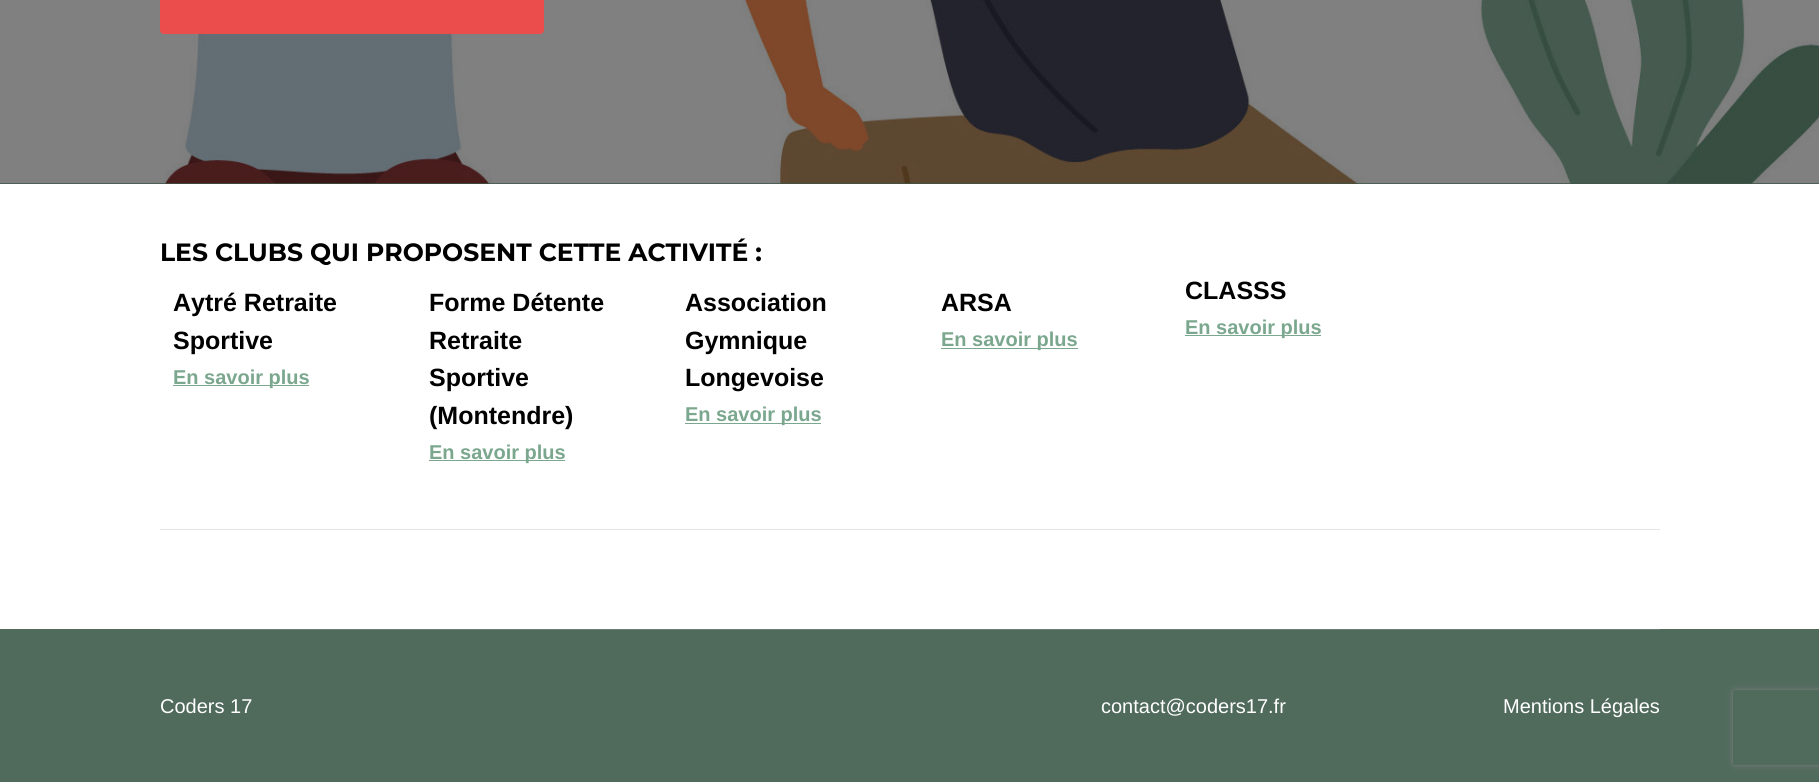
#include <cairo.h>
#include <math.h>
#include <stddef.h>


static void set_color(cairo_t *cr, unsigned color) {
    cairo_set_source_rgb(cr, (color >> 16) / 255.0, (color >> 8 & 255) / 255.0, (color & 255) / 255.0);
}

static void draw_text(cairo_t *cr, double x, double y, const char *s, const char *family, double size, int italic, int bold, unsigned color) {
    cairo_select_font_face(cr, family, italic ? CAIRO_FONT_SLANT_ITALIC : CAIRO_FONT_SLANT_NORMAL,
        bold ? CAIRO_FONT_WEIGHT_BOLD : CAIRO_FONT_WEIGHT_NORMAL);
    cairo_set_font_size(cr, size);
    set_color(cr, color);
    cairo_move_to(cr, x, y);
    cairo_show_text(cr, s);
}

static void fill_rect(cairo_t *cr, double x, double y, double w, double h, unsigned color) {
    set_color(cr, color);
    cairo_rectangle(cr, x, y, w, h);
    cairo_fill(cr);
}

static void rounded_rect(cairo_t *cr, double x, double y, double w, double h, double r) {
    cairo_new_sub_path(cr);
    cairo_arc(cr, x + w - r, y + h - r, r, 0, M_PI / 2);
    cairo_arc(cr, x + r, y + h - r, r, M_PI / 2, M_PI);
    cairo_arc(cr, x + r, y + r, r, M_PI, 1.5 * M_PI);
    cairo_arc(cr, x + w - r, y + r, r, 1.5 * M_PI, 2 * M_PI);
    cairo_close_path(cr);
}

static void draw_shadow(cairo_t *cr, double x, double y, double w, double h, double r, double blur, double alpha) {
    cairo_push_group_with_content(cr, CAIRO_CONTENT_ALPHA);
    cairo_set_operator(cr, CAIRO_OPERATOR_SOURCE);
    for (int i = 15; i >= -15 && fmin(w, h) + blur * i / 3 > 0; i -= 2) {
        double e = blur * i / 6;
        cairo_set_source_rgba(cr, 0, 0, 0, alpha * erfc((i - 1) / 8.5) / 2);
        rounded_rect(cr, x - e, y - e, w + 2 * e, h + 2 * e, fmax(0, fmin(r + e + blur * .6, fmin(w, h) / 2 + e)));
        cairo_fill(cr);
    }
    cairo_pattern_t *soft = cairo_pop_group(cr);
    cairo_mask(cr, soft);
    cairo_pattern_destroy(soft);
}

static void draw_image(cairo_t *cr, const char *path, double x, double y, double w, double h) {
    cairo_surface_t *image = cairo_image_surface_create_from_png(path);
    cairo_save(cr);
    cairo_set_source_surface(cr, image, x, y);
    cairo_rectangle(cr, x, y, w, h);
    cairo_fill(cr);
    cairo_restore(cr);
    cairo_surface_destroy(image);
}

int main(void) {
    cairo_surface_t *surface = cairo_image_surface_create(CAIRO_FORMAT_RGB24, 1819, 782);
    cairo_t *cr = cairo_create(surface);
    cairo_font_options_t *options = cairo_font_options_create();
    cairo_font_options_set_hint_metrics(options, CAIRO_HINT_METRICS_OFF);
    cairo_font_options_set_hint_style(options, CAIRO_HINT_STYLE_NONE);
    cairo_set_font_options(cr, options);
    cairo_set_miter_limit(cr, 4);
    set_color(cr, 0x506A5C);
    cairo_paint(cr);
    fill_rect(cr, 0, 183, 1819, 1, 0x3D5447);
    draw_image(cr, "assets/img1.png", 0, 0, 1819, 184);
    set_color(cr, 0xEB4C4C);
    rounded_rect(cr, 160, -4, 384, 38, 4);
    cairo_fill(cr);
    fill_rect(cr, 0, 184, 1819, 445, 0xFFFFFF);
    draw_text(cr, 160, 261, "LES CLUBS QUI PROPOSENT CETTE ACTIVITÉ :", "Montserrat", 25, 0, 1, 0x000000);
    draw_text(cr, 173, 311, "Aytré Retraite", "Liberation Sans", 25, 0, 1, 0x000000);
    draw_text(cr, 173, 349, "Sportive", "Liberation Sans", 25, 0, 1, 0x000000);
    fill_rect(cr, 173, 385, 136, 1, 0x7AA78E);
    draw_text(cr, 173, 384, "En savoir plus", "Liberation Sans", 20, 0, 1, 0x7AA78E);
    draw_text(cr, 429, 311, "Forme Détente", "Liberation Sans", 25, 0, 1, 0x000000);
    draw_text(cr, 429, 349, "Retraite", "Liberation Sans", 25, 0, 1, 0x000000);
    draw_text(cr, 429, 386, "Sportive", "Liberation Sans", 25, 0, 1, 0x000000);
    draw_text(cr, 429, 424, "(Montendre)", "Liberation Sans", 25, 0, 1, 0x000000);
    fill_rect(cr, 429, 460, 136, 1, 0x7AA78E);
    draw_text(cr, 429, 459, "En savoir plus", "Liberation Sans", 20, 0, 1, 0x7AA78E);
    draw_text(cr, 685, 311, "Association", "Liberation Sans", 25, 0, 1, 0x000000);
    draw_text(cr, 685, 349, "Gymnique", "Liberation Sans", 25, 0, 1, 0x000000);
    draw_text(cr, 685, 386, "Longevoise", "Liberation Sans", 25, 0, 1, 0x000000);
    fill_rect(cr, 685, 423, 136, 1, 0x7AA78E);
    draw_text(cr, 685, 421, "En savoir plus", "Liberation Sans", 20, 0, 1, 0x7AA78E);
    draw_text(cr, 941, 311, "ARSA", "Liberation Sans", 25, 0, 1, 0x000000);
    fill_rect(cr, 941, 348, 137, 1, 0x7AA78E);
    draw_text(cr, 941, 346, "En savoir plus", "Liberation Sans", 20, 0, 1, 0x7AA78E);
    draw_text(cr, 1185, 299, "CLASSS", "Liberation Sans", 25, 0, 1, 0x000000);
    fill_rect(cr, 1185, 335, 136, 1, 0x7AA78E);
    draw_text(cr, 1185, 334, "En savoir plus", "Liberation Sans", 20, 0, 1, 0x7AA78E);
    fill_rect(cr, 160, 529, 1500, 1, 0xE5E5E5);
    fill_rect(cr, 160, 629, 1500, 1, 0x6A8074);
    draw_text(cr, 160, 713, "Coders 17", "Liberation Sans", 20, 0, 0, 0xFFFFFF);
    draw_text(cr, 1101, 713, "contact@coders17.fr", "Liberation Sans", 20, 0, 0, 0xFFFFFF);
    draw_text(cr, 1503, 713, "Mentions Légales", "Liberation Sans", 20, 0, 0, 0xFFFFFF);
    cairo_save(cr);
    cairo_set_fill_rule(cr, CAIRO_FILL_RULE_EVEN_ODD);
    cairo_new_path(cr);
    cairo_move_to(cr, 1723, 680);
    cairo_line_to(cr, 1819, 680);
    cairo_line_to(cr, 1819, 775);
    cairo_line_to(cr, 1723, 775);
    cairo_close_path(cr);
    cairo_move_to(cr, 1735.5, 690);
    cairo_line_to(cr, 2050.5, 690);
    cairo_curve_to(cr, 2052, 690, 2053, 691, 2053, 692.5);
    cairo_line_to(cr, 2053, 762.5);
    cairo_curve_to(cr, 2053, 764, 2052, 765, 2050.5, 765);
    cairo_line_to(cr, 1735.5, 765);
    cairo_curve_to(cr, 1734, 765, 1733, 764, 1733, 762.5);
    cairo_line_to(cr, 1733, 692.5);
    cairo_curve_to(cr, 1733, 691, 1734, 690, 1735.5, 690);
    cairo_close_path(cr);
    cairo_clip(cr);
    set_color(cr, 0x808080);
    draw_shadow(cr, 1733, 690, 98, 75, 2.5, 3, 1);
    cairo_restore(cr);
    cairo_surface_write_to_png(surface, "output.png");
    cairo_font_options_destroy(options);
    cairo_destroy(cr);
    cairo_surface_destroy(surface);
    return 0;
}
